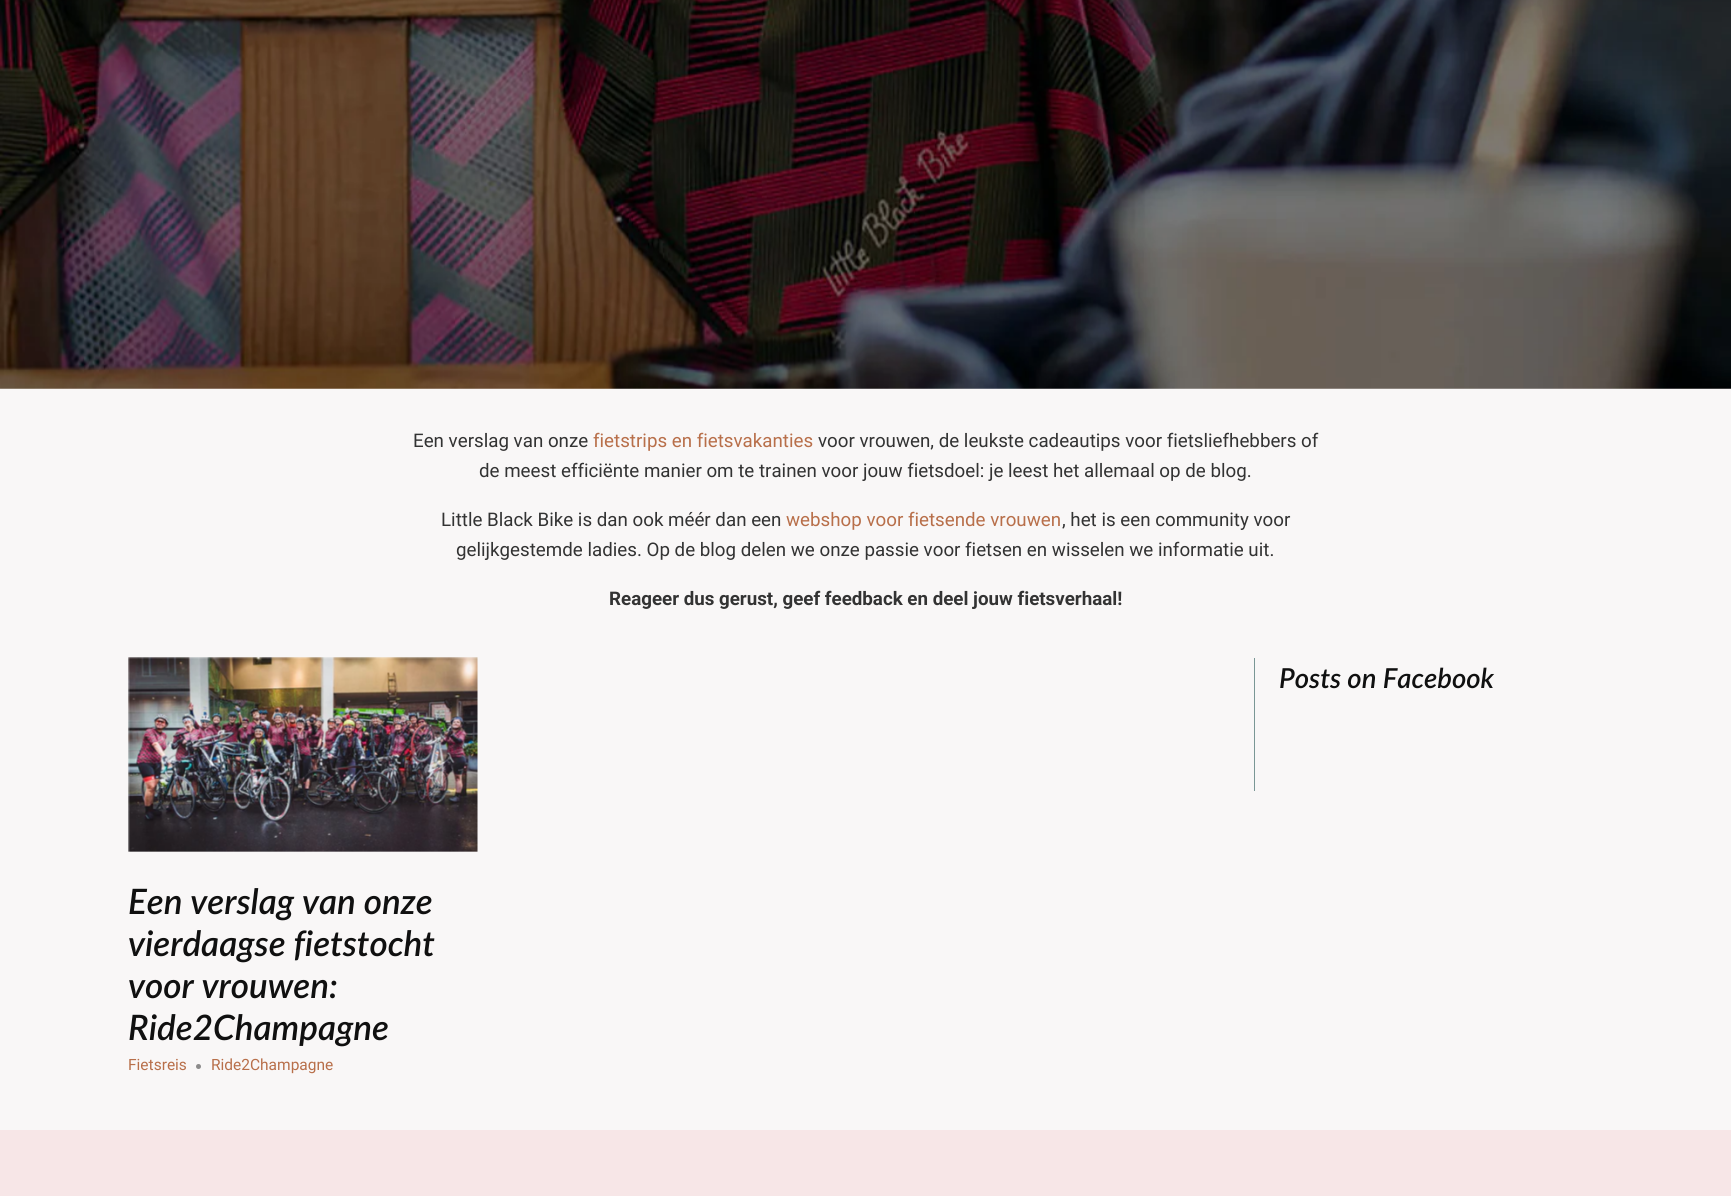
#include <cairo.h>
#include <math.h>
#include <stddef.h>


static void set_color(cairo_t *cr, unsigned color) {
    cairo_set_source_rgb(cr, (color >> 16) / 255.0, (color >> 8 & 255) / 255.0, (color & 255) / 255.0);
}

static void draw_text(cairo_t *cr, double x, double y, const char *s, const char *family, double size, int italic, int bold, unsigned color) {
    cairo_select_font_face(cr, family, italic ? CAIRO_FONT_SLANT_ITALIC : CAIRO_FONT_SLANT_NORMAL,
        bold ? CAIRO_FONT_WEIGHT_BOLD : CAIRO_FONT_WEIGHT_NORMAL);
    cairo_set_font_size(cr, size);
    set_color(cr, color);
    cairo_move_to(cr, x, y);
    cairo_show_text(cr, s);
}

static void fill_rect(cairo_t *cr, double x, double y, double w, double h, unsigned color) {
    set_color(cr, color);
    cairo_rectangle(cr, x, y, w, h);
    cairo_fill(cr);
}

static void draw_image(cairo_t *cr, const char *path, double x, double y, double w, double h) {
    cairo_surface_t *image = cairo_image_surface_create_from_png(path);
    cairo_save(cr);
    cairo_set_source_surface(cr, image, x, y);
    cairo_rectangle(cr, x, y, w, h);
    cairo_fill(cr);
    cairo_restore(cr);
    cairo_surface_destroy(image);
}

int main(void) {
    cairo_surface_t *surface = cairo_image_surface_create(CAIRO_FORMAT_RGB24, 1731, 1196);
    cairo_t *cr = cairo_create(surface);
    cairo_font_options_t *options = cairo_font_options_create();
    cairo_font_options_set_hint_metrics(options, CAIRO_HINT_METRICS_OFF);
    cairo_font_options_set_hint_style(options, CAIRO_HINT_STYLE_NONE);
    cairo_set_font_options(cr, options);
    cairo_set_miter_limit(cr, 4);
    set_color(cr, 0xF9F7F7);
    cairo_paint(cr);
    draw_image(cr, "assets/img1.png", 0, 0, 1731, 389);
    draw_text(cr, 413, 447, "Een verslag van onze", "Roboto", 18.75, 0, 0, 0x333333);
    draw_text(cr, 593, 447, "fietstrips en fietsvakanties", "Roboto", 18.75, 0, 0, 0xB86F4A);
    draw_text(cr, 818, 447, "voor vrouwen, de leukste cadeautips voor fietsliefhebbers of", "Roboto", 18.75, 0, 0, 0x333333);
    draw_text(cr, 479, 477, "de meest efficiënte manier om te trainen voor jouw fietsdoel: je leest het allemaal op de blog.", "Roboto", 18.75, 0, 0, 0x333333);
    draw_text(cr, 441, 526, "Little Black Bike is dan ook méér dan een", "Roboto", 18.75, 0, 0, 0x333333);
    draw_text(cr, 786, 526, "webshop voor fietsende vrouwen", "Roboto", 18.75, 0, 0, 0xB86F4A);
    draw_text(cr, 1062, 526, ", het is een community voor", "Roboto", 18.75, 0, 0, 0x333333);
    draw_text(cr, 456, 556, "gelijkgestemde ladies. Op de blog delen we onze passie voor fietsen en wisselen we informatie uit.", "Roboto", 18.75, 0, 0, 0x333333);
    draw_text(cr, 609, 605, "Reageer dus gerust, geef feedback en deel jouw fietsverhaal!", "Roboto", 18.75, 0, 1, 0x333333);
    fill_rect(cr, 1254, 658, 1, 133, 0x7A9795);
    draw_text(cr, 1279, 688, "Posts on Facebook", "Lato SemiBold", 27.5, 1, 0, 0x101010);
    draw_image(cr, "assets/img2.png", 128, 657, 350, 195);
    draw_text(cr, 128, 914, "Een verslag van onze", "Lato SemiBold", 35, 1, 0, 0x101010);
    draw_text(cr, 128, 956, "vierdaagse fietstocht", "Lato SemiBold", 35, 1, 0, 0x101010);
    draw_text(cr, 128, 998, "voor vrouwen:", "Lato SemiBold", 35, 1, 0, 0x101010);
    draw_text(cr, 128, 1040, "Ride2Champagne", "Lato SemiBold", 35, 1, 0, 0x101010);
    draw_text(cr, 128, 1070, "Fietsreis", "Roboto", 15.5, 0, 0, 0xB86F4A);
    set_color(cr, 0x8C8B8B);
    cairo_new_path(cr);
    cairo_arc(cr, 198.5, 1066.5, 2.5, 0, 2 * M_PI);
    cairo_fill(cr);
    draw_text(cr, 211, 1070, "Ride2Champagne", "Roboto", 15.5, 0, 0, 0xB86F4A);
    fill_rect(cr, 0, 1130, 1731, 66, 0xF7E6E7);
    cairo_surface_write_to_png(surface, "output.png");
    cairo_font_options_destroy(options);
    cairo_destroy(cr);
    cairo_surface_destroy(surface);
    return 0;
}
